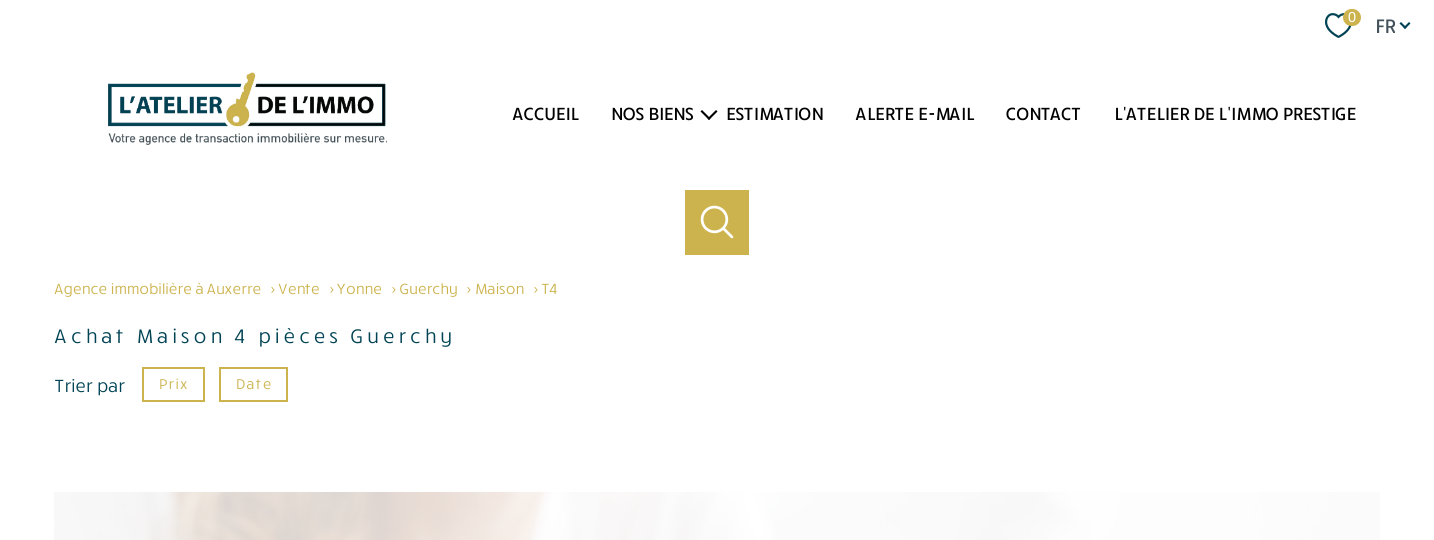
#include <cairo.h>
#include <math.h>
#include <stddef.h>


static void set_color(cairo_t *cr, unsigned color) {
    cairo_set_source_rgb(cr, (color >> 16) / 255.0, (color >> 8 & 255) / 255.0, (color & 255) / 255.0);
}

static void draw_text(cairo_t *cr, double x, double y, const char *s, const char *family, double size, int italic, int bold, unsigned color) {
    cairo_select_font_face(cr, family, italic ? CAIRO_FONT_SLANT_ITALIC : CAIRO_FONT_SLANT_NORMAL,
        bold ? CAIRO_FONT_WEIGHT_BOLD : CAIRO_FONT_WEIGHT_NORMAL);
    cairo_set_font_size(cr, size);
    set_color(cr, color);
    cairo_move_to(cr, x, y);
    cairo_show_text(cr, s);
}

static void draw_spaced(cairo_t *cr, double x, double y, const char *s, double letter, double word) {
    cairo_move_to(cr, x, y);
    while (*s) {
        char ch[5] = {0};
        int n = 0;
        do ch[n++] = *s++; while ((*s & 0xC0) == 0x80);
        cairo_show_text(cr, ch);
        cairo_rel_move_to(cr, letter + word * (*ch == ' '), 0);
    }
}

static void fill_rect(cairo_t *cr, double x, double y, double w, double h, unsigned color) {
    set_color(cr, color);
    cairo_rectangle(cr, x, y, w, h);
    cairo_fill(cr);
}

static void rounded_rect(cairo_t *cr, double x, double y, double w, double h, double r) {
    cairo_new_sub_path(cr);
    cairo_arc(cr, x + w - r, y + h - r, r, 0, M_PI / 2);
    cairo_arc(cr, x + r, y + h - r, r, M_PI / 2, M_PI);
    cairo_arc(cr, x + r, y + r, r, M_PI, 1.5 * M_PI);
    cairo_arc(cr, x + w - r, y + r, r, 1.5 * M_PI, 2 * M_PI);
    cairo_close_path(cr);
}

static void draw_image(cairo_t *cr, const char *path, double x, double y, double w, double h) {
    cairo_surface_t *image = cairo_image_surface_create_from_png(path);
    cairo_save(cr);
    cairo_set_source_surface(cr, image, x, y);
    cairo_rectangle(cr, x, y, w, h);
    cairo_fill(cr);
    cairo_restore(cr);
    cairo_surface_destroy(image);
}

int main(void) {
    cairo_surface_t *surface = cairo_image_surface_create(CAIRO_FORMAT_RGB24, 1434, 540);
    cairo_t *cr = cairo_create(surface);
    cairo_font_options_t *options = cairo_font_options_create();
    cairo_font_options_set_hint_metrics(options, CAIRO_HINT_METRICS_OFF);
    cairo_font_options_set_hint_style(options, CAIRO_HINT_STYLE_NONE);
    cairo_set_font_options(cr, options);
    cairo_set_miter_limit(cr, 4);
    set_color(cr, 0xFFFFFF);
    cairo_paint(cr);
    draw_image(cr, "assets/img1.png", 1325, 13, 27, 25);
    set_color(cr, 0xCCB34E);
    rounded_rect(cr, 1343, 9, 18, 17, 8.5);
    cairo_fill(cr);
    draw_text(cr, 1348, 22, "0", "Liberation Sans", 14.5, 0, 0, 0xFFFFFF);
    cairo_save(cr);
    cairo_rectangle(cr, 1374, 15, 21, 20);
    cairo_clip(cr);
    draw_text(cr, 1374, 33, "FR", "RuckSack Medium", 20, 0, 0, 0x43515A);
    cairo_restore(cr);
    set_color(cr, 0x004354);
    cairo_new_path(cr);
    cairo_move_to(cr, 1409, 22);
    cairo_line_to(cr, 1410.5, 23.5);
    cairo_line_to(cr, 1405, 29);
    cairo_line_to(cr, 1403.5, 27.5);
    cairo_close_path(cr);
    cairo_fill(cr);
    cairo_new_path(cr);
    cairo_move_to(cr, 1401, 22);
    cairo_line_to(cr, 1406.5, 27.5);
    cairo_line_to(cr, 1405, 29);
    cairo_line_to(cr, 1399.5, 23.5);
    cairo_close_path(cr);
    cairo_fill(cr);
    draw_image(cr, "assets/img2.png", 108, 72, 279, 73);
    draw_text(cr, 512, 120, "ACCUEIL", "RuckSack Medium", 18, 0, 0, 0x000000);
    draw_text(cr, 610, 120, "NOS BIENS", "RuckSack Medium", 18, 0, 0, 0x000000);
    cairo_new_path(cr);
    cairo_move_to(cr, 709, 120);
    cairo_line_to(cr, 700.5, 111.5);
    cairo_line_to(cr, 702, 110);
    cairo_line_to(cr, 710.5, 118.5);
    cairo_close_path(cr);
    cairo_fill(cr);
    cairo_new_path(cr);
    cairo_move_to(cr, 709, 120);
    cairo_line_to(cr, 707.5, 118.5);
    cairo_line_to(cr, 716, 110);
    cairo_line_to(cr, 717.5, 111.5);
    cairo_close_path(cr);
    cairo_fill(cr);
    draw_text(cr, 725, 120, "ESTIMATION", "RuckSack Medium", 18, 0, 0, 0x000000);
    draw_text(cr, 855, 120, "ALERTE E-MAIL", "RuckSack Medium", 18, 0, 0, 0x000000);
    draw_text(cr, 1005, 120, "CONTACT", "RuckSack Medium", 18, 0, 0, 0x000000);
    draw_text(cr, 1113, 120, "L'ATELIER DE L'IMMO PRESTIGE", "RuckSack Medium", 18, 0, 0, 0x000000);
    fill_rect(cr, 685, 190, 64, 65, 0xCCB34E);
    draw_image(cr, "assets/img3.png", 700, 205, 34, 34);
    draw_text(cr, 54, 294, "Agence immobilière à Auxerre", "RuckSack", 15, 0, 0, 0xCCB34E);
    draw_text(cr, 269, 294, ">", "RuckSack", 15, 0, 0, 0xCCB34E);
    draw_text(cr, 278, 294, "Vente", "RuckSack", 15, 0, 0, 0xCCB34E);
    draw_text(cr, 328, 294, ">", "RuckSack", 15, 0, 0, 0xCCB34E);
    draw_text(cr, 337, 294, "Yonne", "RuckSack", 15, 0, 0, 0xCCB34E);
    draw_text(cr, 390, 294, ">", "RuckSack", 15, 0, 0, 0xCCB34E);
    draw_text(cr, 399, 294, "Guerchy", "RuckSack", 15, 0, 0, 0xCCB34E);
    draw_text(cr, 465, 294, ">", "RuckSack", 15, 0, 0, 0xCCB34E);
    draw_text(cr, 474, 294, "Maison", "RuckSack", 15, 0, 0, 0xCCB34E);
    draw_text(cr, 532, 294, ">", "RuckSack", 15, 0, 0, 0xCCB34E);
    draw_text(cr, 541, 294, "T4", "RuckSack", 15, 0, 0, 0xCCB34E);
    cairo_set_font_size(cr, 20);
    set_color(cr, 0x004354);
    draw_spaced(cr, 54, 343, "Achat Maison 4 pièces Guerchy", 4, 0);
    draw_text(cr, 54, 392, "Trier par", "RuckSack", 18, 0, 0, 0x004354);
    cairo_rectangle(cr, 143, 368, 61, 33);
    set_color(cr, 0xCCB34E);
    cairo_stroke(cr);
    cairo_set_font_size(cr, 14.5);
    draw_spaced(cr, 158, 389, "Prix", 1.5, 0);
    cairo_rectangle(cr, 220, 368, 67, 33);
    cairo_stroke(cr);
    draw_spaced(cr, 235, 389, "Date", 1.5, 0);
    draw_image(cr, "assets/img4.png", 54, 492, 1326, 48);
    cairo_surface_write_to_png(surface, "output.png");
    cairo_font_options_destroy(options);
    cairo_destroy(cr);
    cairo_surface_destroy(surface);
    return 0;
}
